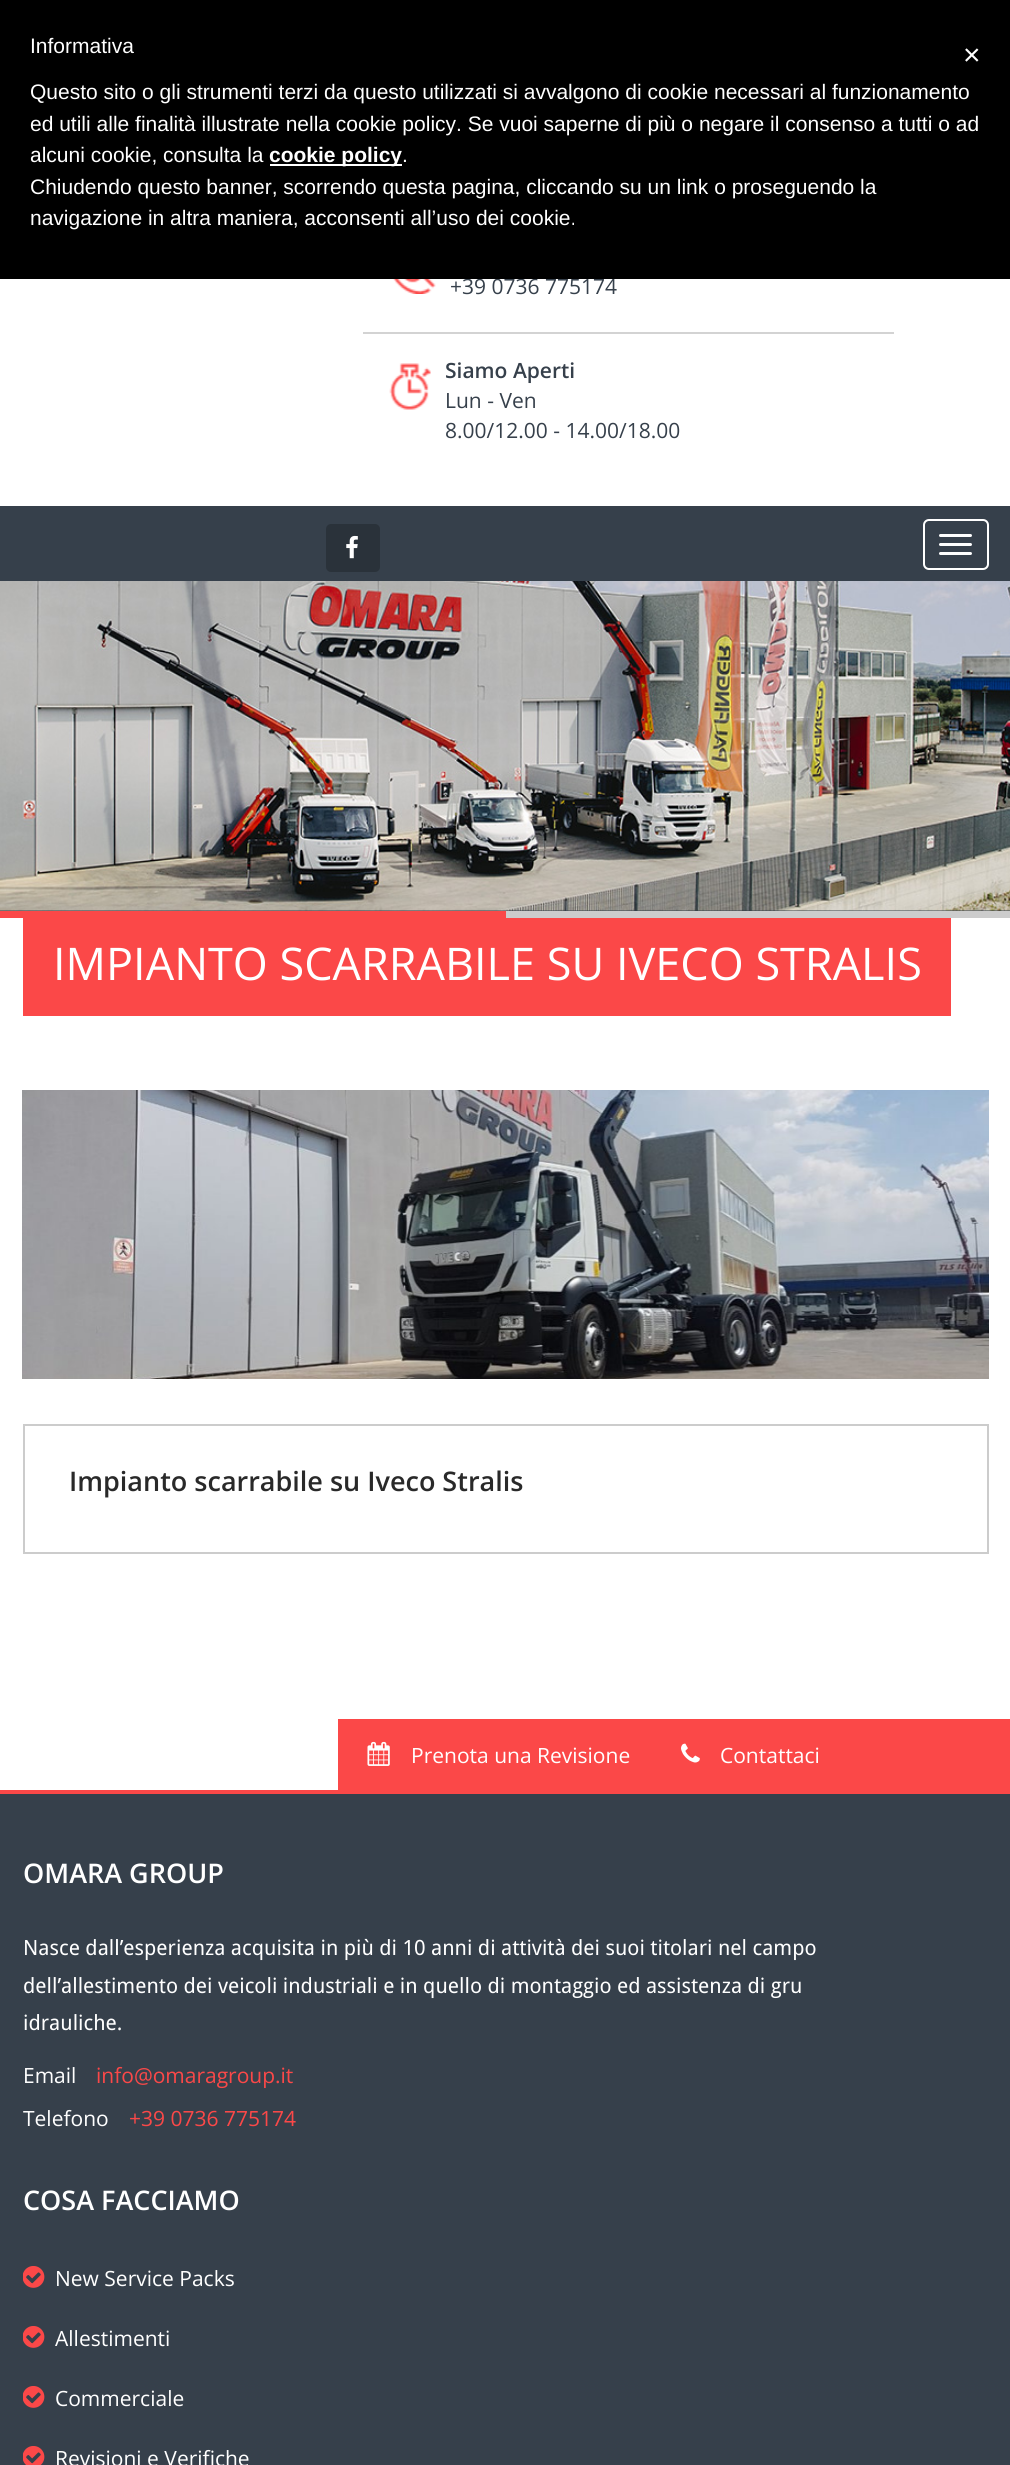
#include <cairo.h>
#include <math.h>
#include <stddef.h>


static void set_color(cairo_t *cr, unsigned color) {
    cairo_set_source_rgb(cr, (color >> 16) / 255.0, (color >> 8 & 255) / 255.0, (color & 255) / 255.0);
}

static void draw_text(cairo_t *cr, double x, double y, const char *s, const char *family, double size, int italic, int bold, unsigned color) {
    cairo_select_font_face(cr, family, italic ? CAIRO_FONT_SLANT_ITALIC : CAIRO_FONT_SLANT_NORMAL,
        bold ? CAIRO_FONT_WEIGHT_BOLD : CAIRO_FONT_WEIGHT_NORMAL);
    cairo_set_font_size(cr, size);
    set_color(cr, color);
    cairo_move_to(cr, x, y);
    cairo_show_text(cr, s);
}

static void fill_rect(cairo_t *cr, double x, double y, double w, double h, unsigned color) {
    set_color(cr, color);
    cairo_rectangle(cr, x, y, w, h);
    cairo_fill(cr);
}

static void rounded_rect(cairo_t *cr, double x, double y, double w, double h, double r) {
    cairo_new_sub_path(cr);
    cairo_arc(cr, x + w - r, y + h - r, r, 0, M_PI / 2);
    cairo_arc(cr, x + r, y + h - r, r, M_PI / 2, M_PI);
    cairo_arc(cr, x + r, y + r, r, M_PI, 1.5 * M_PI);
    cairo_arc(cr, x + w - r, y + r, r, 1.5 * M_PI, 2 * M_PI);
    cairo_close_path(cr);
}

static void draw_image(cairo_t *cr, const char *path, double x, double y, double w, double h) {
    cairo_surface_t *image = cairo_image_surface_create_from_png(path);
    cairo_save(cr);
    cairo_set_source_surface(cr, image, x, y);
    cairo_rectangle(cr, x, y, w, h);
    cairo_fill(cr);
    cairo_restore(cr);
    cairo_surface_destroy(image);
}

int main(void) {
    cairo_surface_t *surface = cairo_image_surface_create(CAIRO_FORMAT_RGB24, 1010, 2465);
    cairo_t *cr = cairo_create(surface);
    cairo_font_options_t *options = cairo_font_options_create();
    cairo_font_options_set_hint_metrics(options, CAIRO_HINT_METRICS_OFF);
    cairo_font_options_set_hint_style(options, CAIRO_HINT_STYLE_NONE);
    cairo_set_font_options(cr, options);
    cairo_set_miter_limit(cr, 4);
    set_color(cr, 0xFFFFFF);
    cairo_paint(cr);
    draw_text(cr, 450, 294, "+39 0736 775174", "Open Sans", 21, 0, 0, 0x36404B);
    fill_rect(cr, 0, 0, 1010, 279, 0x000000);
    draw_text(cr, 30, 53, "Informativa", "Liberation Sans", 21, 0, 0, 0xFFFFFF);
    draw_text(cr, 30, 99, "Questo sito o gli strumenti terzi da questo utilizzati si avvalgono di cookie necessari al funzionamento", "Liberation Sans", 21, 0, 0, 0xFFFFFF);
    draw_text(cr, 30, 131, "ed utili alle finalità illustrate nella cookie policy. Se vuoi saperne di più o negare il consenso a tutti o ad", "Liberation Sans", 21, 0, 0, 0xFFFFFF);
    draw_text(cr, 30, 162, "alcuni cookie, consulta la", "Liberation Sans", 21, 0, 0, 0xFFFFFF);
    fill_rect(cr, 270, 164, 132, 2, 0xFFFFFF);
    draw_text(cr, 269, 162, "cookie policy", "Liberation Sans", 21, 0, 1, 0xFFFFFF);
    draw_text(cr, 402, 162, ".", "Liberation Sans", 21, 0, 0, 0xFFFFFF);
    draw_text(cr, 30, 194, "Chiudendo questo banner, scorrendo questa pagina, cliccando su un link o proseguendo la", "Liberation Sans", 21, 0, 0, 0xFFFFFF);
    draw_text(cr, 30, 225, "navigazione in altra maniera, acconsenti all’uso dei cookie.", "Liberation Sans", 21, 0, 0, 0xFFFFFF);
    draw_text(cr, 963, 65, "×", "Liberation Sans", 30, 0, 0, 0xFFFFFF);
    fill_rect(cr, 363, 332, 531, 2, 0xD3D3D3);
    draw_image(cr, "assets/img1.png", 393, 279, 43, 15);
    draw_image(cr, "assets/img2.png", 389, 363, 42, 47);
    draw_text(cr, 445, 378, "Siamo Aperti", "Open Sans SemiBold", 21, 0, 0, 0x36404B);
    draw_text(cr, 445, 408, "Lun - Ven", "Open Sans", 21, 0, 0, 0x36404B);
    draw_text(cr, 445, 438, "8.00/12.00 - 14.00/18.00", "Open Sans", 21, 0, 0, 0x36404B);
    fill_rect(cr, 0, 506, 1010, 75, 0x36404B);
    set_color(cr, 0x2A323A);
    rounded_rect(cr, 326, 524, 54, 48, 5);
    cairo_fill(cr);
    draw_image(cr, "assets/img3.png", 346, 535, 12, 24);
    rounded_rect(cr, 924, 520, 64, 49, 5);
    set_color(cr, 0xFFFFFF);
    cairo_stroke(cr);
    rounded_rect(cr, 939, 534, 33, 3, 1.5);
    cairo_fill(cr);
    rounded_rect(cr, 939, 543, 33, 3, 1.5);
    cairo_fill(cr);
    rounded_rect(cr, 939, 552, 33, 3, 1.5);
    cairo_fill(cr);
    fill_rect(cr, 0, 910, 1010, 1, 0x36404B);
    draw_image(cr, "assets/img4.png", 0, 581, 1010, 330);
    fill_rect(cr, 0, 911, 506, 7, 0xFB4848);
    fill_rect(cr, 506, 911, 504, 7, 0xCCCCCC);
    fill_rect(cr, 23, 918, 928, 98, 0xFB4848);
    draw_text(cr, 53, 980, "IMPIANTO SCARRABILE SU IVECO STRALIS", "Open Sans", 45, 0, 0, 0xFFFFFF);
    draw_image(cr, "assets/img5.png", 22, 1090, 967, 289);
    cairo_rectangle(cr, 24, 1425, 964, 128);
    set_color(cr, 0xCCCCCC);
    cairo_stroke(cr);
    draw_text(cr, 69, 1491, "Impianto scarrabile su Iveco Stralis", "Open Sans SemiBold", 27, 0, 0, 0x292929);
    fill_rect(cr, 0, 1790, 1010, 4, 0xFB4848);
    fill_rect(cr, 338, 1719, 672, 71, 0xFB4848);
    draw_image(cr, "assets/img6.png", 367, 1741, 23, 25);
    draw_text(cr, 411, 1763, "Prenota una Revisione", "Open Sans", 21, 0, 0, 0xFFFFFF);
    draw_image(cr, "assets/img7.png", 681, 1743, 19, 20);
    draw_text(cr, 720, 1763, "Contattaci", "Open Sans", 21, 0, 0, 0xFFFFFF);
    fill_rect(cr, 0, 1794, 1010, 671, 0x36404B);
    draw_text(cr, 23, 1883, "OMARA GROUP", "Open Sans SemiBold", 27, 0, 0, 0xFFFFFF);
    draw_text(cr, 23, 1955, "Nasce dall’esperienza acquisita in più di 10 anni di attività dei suoi titolari nel campo", "Droid Sans", 21, 0, 0, 0xFFFFFF);
    draw_text(cr, 23, 1993, "dell’allestimento dei veicoli industriali e in quello di montaggio ed assistenza di gru", "Droid Sans", 21, 0, 0, 0xFFFFFF);
    draw_text(cr, 23, 2030, "idrauliche.", "Droid Sans", 21, 0, 0, 0xFFFFFF);
    draw_text(cr, 23, 2083, "Email", "Open Sans", 21, 0, 0, 0xFFFFFF);
    draw_text(cr, 96, 2083, "info@omaragroup.it", "Open Sans", 21, 0, 0, 0xFB4848);
    draw_text(cr, 23, 2126, "Telefono", "Open Sans", 21, 0, 0, 0xFFFFFF);
    draw_text(cr, 129, 2126, "+39 0736 775174", "Open Sans", 21, 0, 0, 0xFB4848);
    draw_text(cr, 23, 2210, "COSA FACCIAMO", "Open Sans SemiBold", 27, 0, 0, 0xFFFFFF);
    draw_image(cr, "assets/img8.png", 23, 2266, 22, 22);
    draw_text(cr, 55, 2286, "New Service Packs", "Open Sans", 21, 0, 0, 0xFFFFFF);
    draw_image(cr, "assets/img8.png", 23, 2326, 22, 22);
    draw_text(cr, 55, 2346, "Allestimenti", "Open Sans", 21, 0, 0, 0xFFFFFF);
    draw_image(cr, "assets/img8.png", 23, 2386, 22, 22);
    draw_text(cr, 55, 2406, "Commerciale", "Open Sans", 21, 0, 0, 0xFFFFFF);
    draw_image(cr, "assets/img9.png", 23, 2446, 22, 19);
    draw_text(cr, 55, 2466, "Revisioni e Verifiche", "Open Sans", 21, 0, 0, 0xFFFFFF);
    cairo_surface_write_to_png(surface, "output.png");
    cairo_font_options_destroy(options);
    cairo_destroy(cr);
    cairo_surface_destroy(surface);
    return 0;
}
